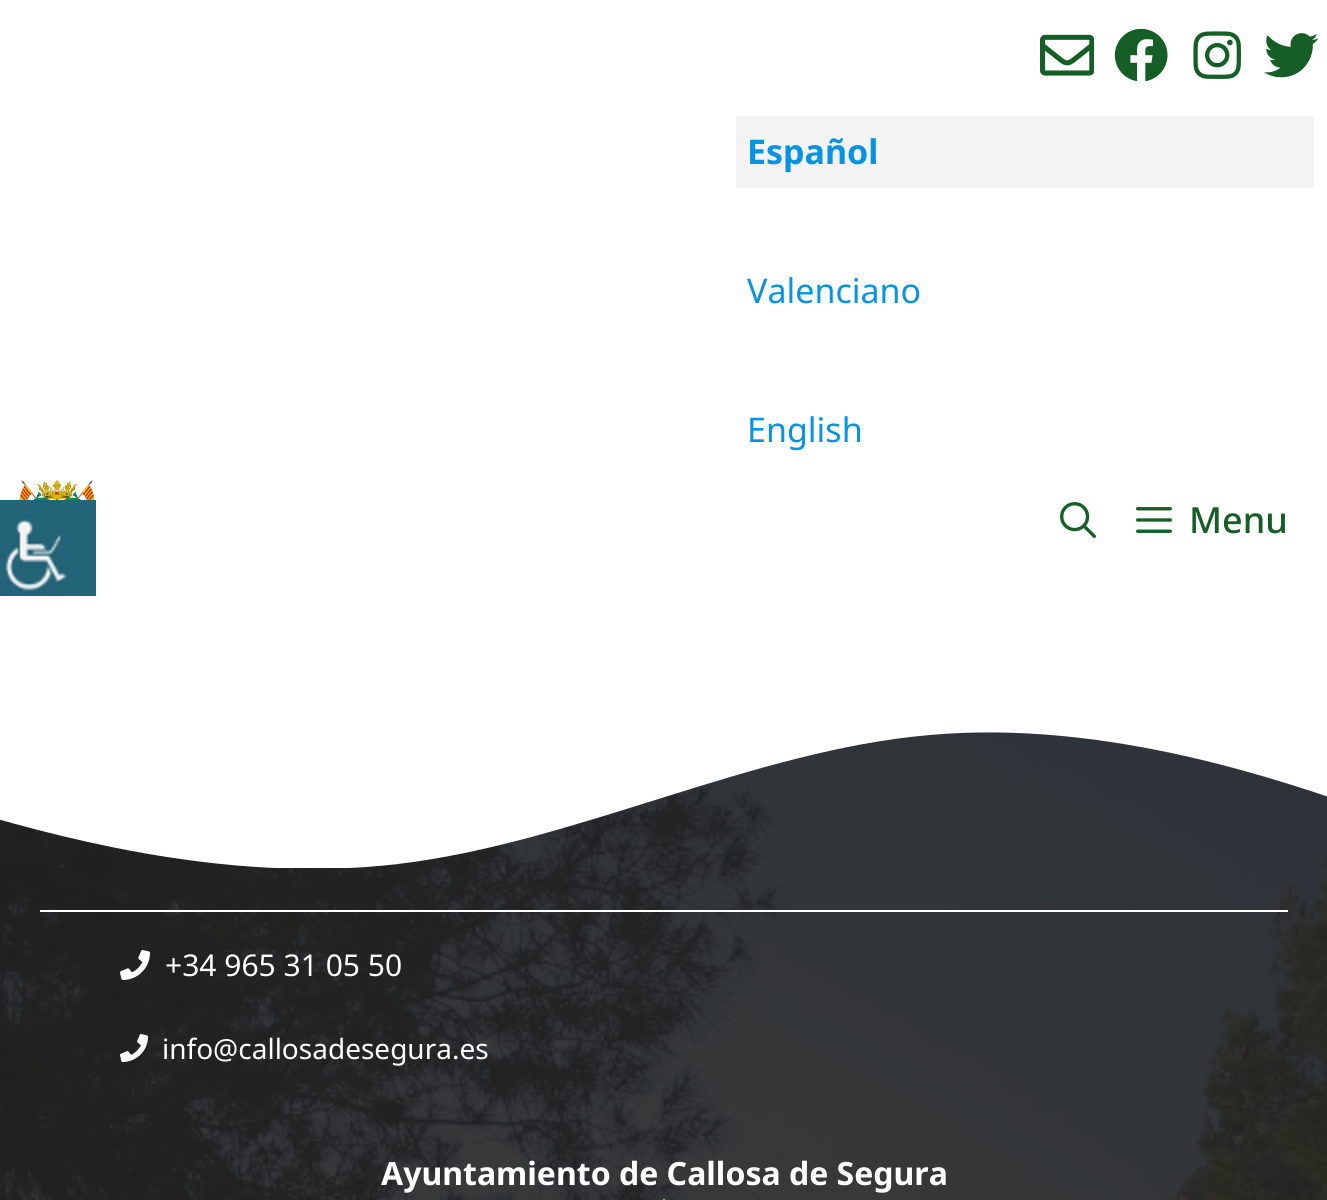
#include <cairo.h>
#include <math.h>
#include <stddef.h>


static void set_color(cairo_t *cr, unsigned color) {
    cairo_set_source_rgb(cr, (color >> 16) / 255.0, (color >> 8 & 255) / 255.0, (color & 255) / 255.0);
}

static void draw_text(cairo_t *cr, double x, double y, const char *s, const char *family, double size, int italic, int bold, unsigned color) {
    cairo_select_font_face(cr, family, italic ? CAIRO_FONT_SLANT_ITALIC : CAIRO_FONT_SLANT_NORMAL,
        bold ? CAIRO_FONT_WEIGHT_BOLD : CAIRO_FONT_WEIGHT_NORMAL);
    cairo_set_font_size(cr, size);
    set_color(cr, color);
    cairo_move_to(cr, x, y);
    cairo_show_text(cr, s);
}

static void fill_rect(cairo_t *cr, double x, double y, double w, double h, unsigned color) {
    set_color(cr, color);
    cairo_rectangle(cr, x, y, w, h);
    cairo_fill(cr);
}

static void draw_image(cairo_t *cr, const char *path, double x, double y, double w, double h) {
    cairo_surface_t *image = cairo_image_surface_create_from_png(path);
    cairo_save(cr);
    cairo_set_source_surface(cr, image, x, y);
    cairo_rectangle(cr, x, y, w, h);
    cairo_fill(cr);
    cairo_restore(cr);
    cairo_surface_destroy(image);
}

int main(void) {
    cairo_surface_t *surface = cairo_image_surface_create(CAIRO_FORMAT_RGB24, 1327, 1200);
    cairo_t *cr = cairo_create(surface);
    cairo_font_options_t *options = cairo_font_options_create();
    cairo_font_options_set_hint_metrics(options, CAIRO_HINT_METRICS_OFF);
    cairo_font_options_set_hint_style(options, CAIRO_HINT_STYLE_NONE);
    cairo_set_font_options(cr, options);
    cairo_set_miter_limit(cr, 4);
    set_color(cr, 0xFFFFFF);
    cairo_paint(cr);
    draw_image(cr, "assets/img1.png", 1040, 34, 54, 42);
    draw_image(cr, "assets/img2.png", 1114, 28, 54, 54);
    draw_image(cr, "assets/img3.png", 1193, 31, 48, 48);
    draw_image(cr, "assets/img4.png", 1264, 33, 54, 45);
    fill_rect(cr, 736, 116, 578, 72, 0xF3F3F3);
    draw_text(cr, 747, 164, "Español", "Noto Sans", 34, 0, 1, 0x0693E3);
    draw_text(cr, 747, 303, "Valenciano", "Noto Sans", 34, 0, 0, 0x0693E3);
    draw_text(cr, 747, 442, "English", "Noto Sans", 34, 0, 0, 0x0693E3);
    draw_image(cr, "assets/img5.png", 0, 500, 96, 96);
    draw_image(cr, "assets/img6.png", 20, 480, 74, 20);
    draw_image(cr, "assets/img7.png", 1060, 502, 36, 36);
    draw_image(cr, "assets/img8.png", 1136, 507, 36, 26);
    draw_text(cr, 1189, 533, "Menu", "Noto Sans Medium", 36, 0, 0, 0x155E26);
    fill_rect(cr, 0, 732, 1327, 468, 0x222222);
    draw_image(cr, "assets/img9.png", 0, 732, 1327, 468);
    cairo_save(cr);
    cairo_rectangle(cr, 0, 710, 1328, 158);
    cairo_clip(cr);
    set_color(cr, 0xFFFFFF);
    cairo_new_path(cr);
    cairo_move_to(cr, -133, 709);
    cairo_line_to(cr, 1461, 709);
    cairo_line_to(cr, 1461, 843);
    cairo_line_to(cr, 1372, 812);
    cairo_curve_to(cr, 1284, 781, 1107, 719, 930, 735);
    cairo_curve_to(cr, 753, 750, 575, 843, 398, 864);
    cairo_curve_to(cr, 221, 885, 44, 833, -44, 807);
    cairo_line_to(cr, -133, 781);
    cairo_close_path(cr);
    cairo_fill(cr);
    cairo_restore(cr);
    fill_rect(cr, 40, 910, 1248, 2, 0xFFFFFF);
    draw_image(cr, "assets/img10.png", 120, 950, 30, 30);
    draw_text(cr, 165, 976, "+34 965 31 05 50", "Noto Sans", 30, 0, 0, 0xFFFFFF);
    draw_image(cr, "assets/img11.png", 120, 1034, 28, 28);
    draw_text(cr, 162, 1059, "info@callosadesegura.es", "Noto Sans", 28, 0, 0, 0xFFFFFF);
    draw_text(cr, 381, 1185, "Ayuntamiento de Callosa de Segura", "Noto Sans", 32, 0, 1, 0xFFFFFF);
    draw_image(cr, "assets/img12.png", 567, 1198, 194, 2);
    cairo_surface_write_to_png(surface, "output.png");
    cairo_font_options_destroy(options);
    cairo_destroy(cr);
    cairo_surface_destroy(surface);
    return 0;
}
